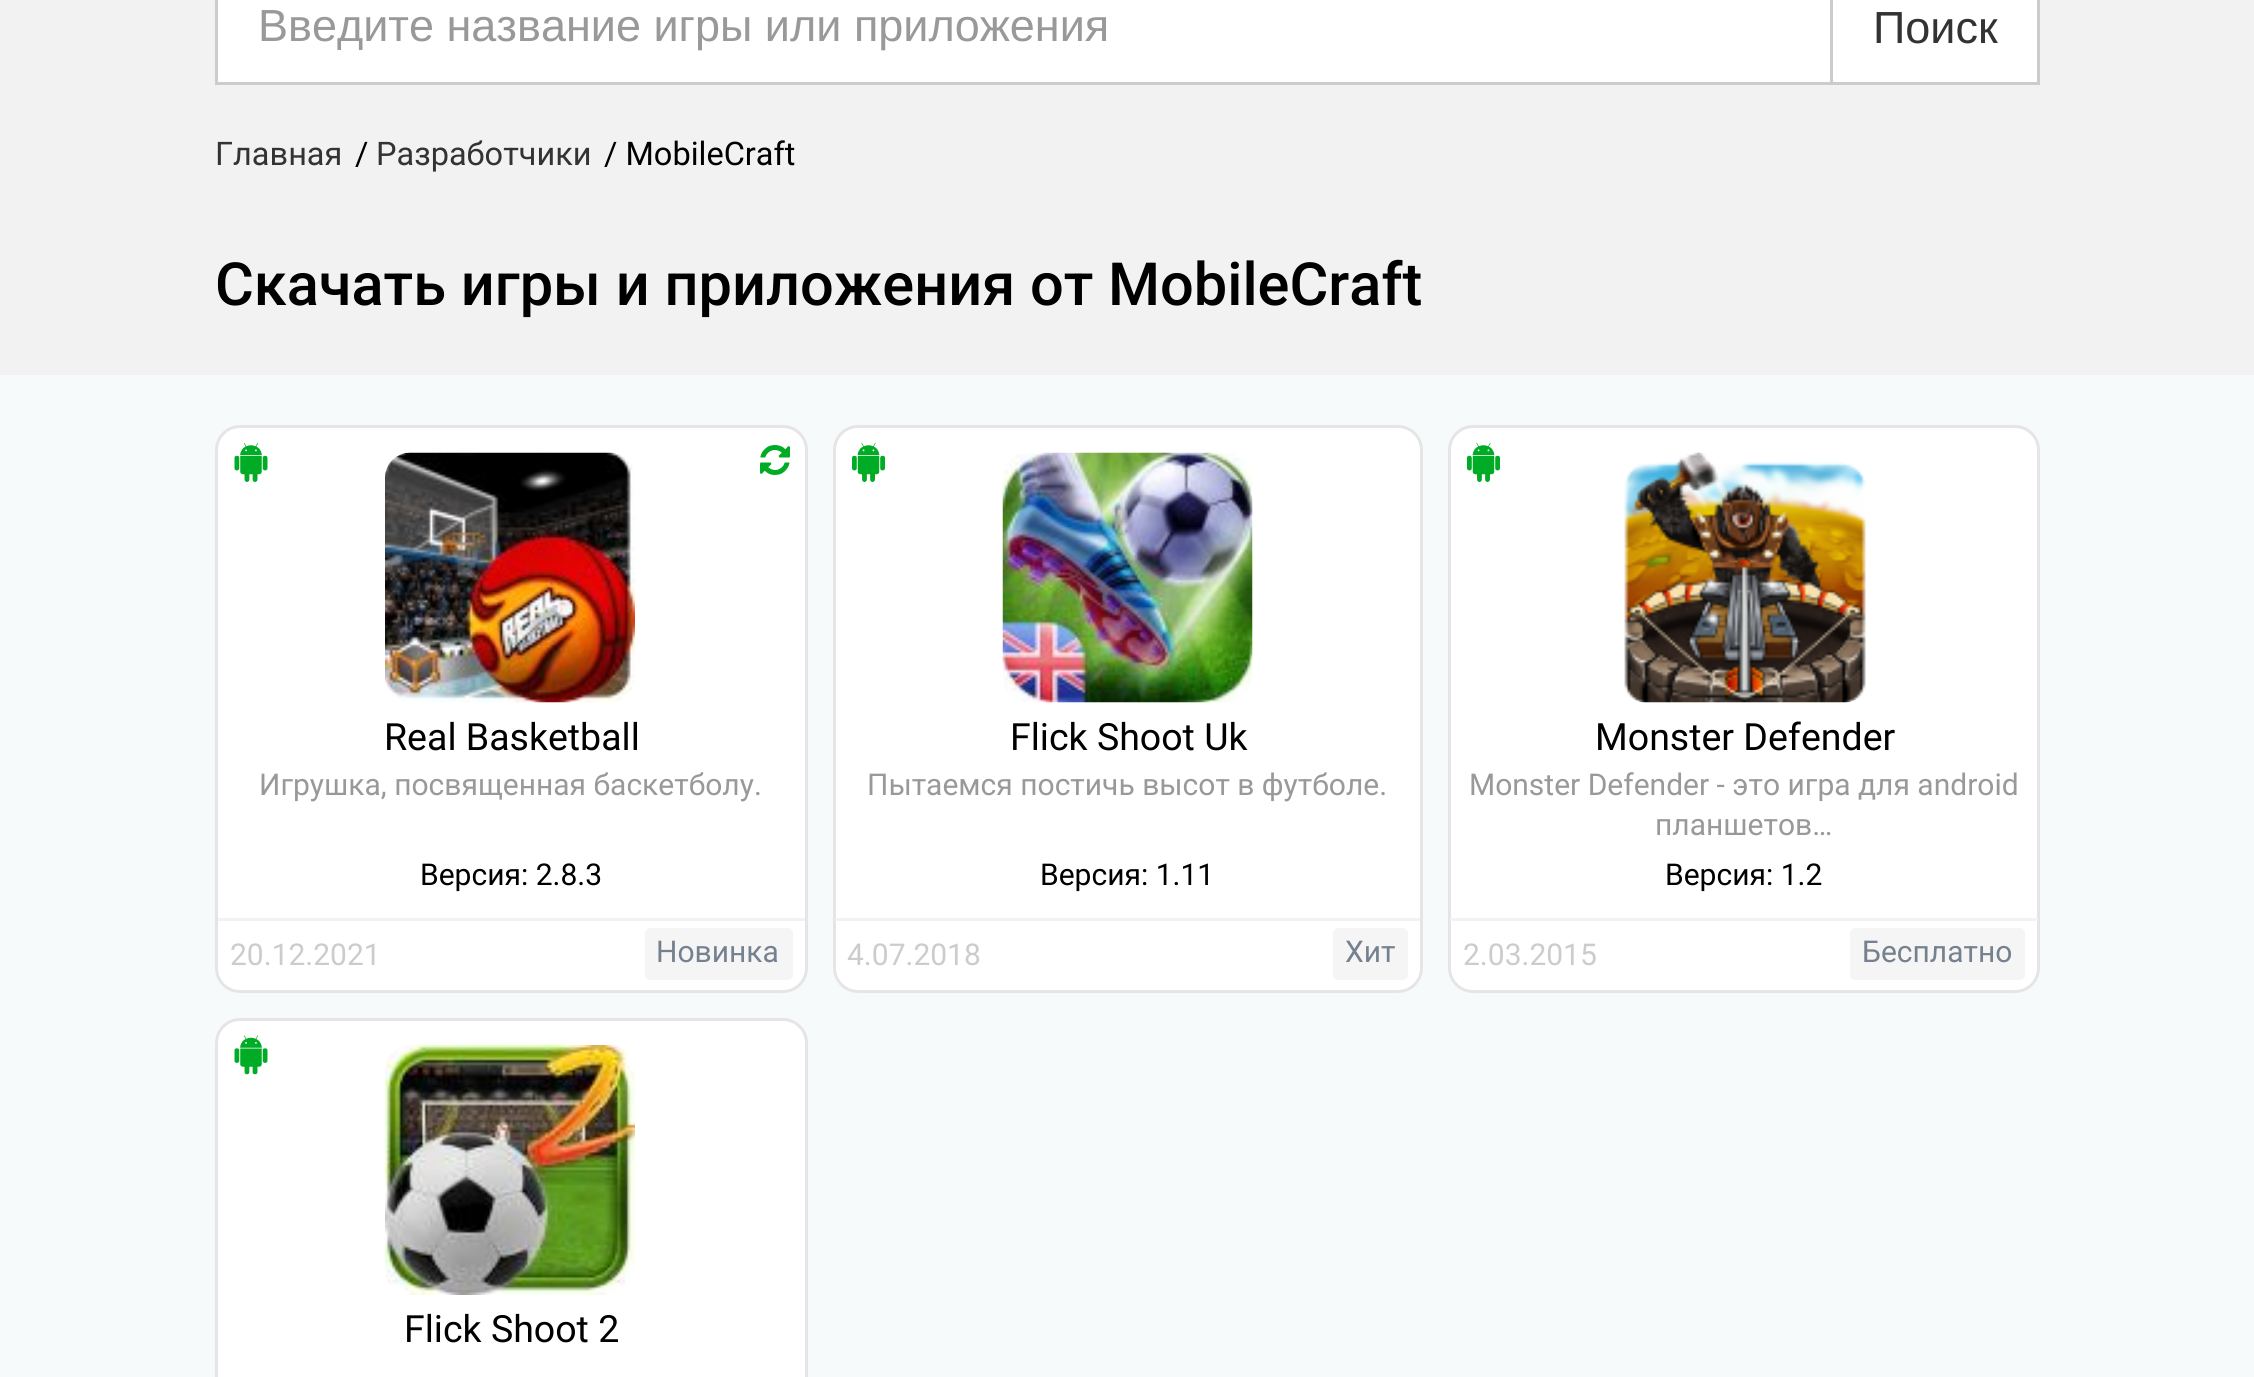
#include <cairo.h>
#include <math.h>
#include <stddef.h>


static void set_color(cairo_t *cr, unsigned color) {
    cairo_set_source_rgb(cr, (color >> 16) / 255.0, (color >> 8 & 255) / 255.0, (color & 255) / 255.0);
}

static void draw_text(cairo_t *cr, double x, double y, const char *s, const char *family, double size, int italic, int bold, unsigned color) {
    cairo_select_font_face(cr, family, italic ? CAIRO_FONT_SLANT_ITALIC : CAIRO_FONT_SLANT_NORMAL,
        bold ? CAIRO_FONT_WEIGHT_BOLD : CAIRO_FONT_WEIGHT_NORMAL);
    cairo_set_font_size(cr, size);
    set_color(cr, color);
    cairo_move_to(cr, x, y);
    cairo_show_text(cr, s);
}

static void fill_rect(cairo_t *cr, double x, double y, double w, double h, unsigned color) {
    set_color(cr, color);
    cairo_rectangle(cr, x, y, w, h);
    cairo_fill(cr);
}

static void rounded_rect(cairo_t *cr, double x, double y, double w, double h, double r) {
    cairo_new_sub_path(cr);
    cairo_arc(cr, x + w - r, y + h - r, r, 0, M_PI / 2);
    cairo_arc(cr, x + r, y + h - r, r, M_PI / 2, M_PI);
    cairo_arc(cr, x + r, y + r, r, M_PI, 1.5 * M_PI);
    cairo_arc(cr, x + w - r, y + r, r, 1.5 * M_PI, 2 * M_PI);
    cairo_close_path(cr);
}

static void draw_image(cairo_t *cr, const char *path, double x, double y, double w, double h) {
    cairo_surface_t *image = cairo_image_surface_create_from_png(path);
    cairo_save(cr);
    cairo_set_source_surface(cr, image, x, y);
    cairo_rectangle(cr, x, y, w, h);
    cairo_fill(cr);
    cairo_restore(cr);
    cairo_surface_destroy(image);
}

int main(void) {
    cairo_surface_t *surface = cairo_image_surface_create(CAIRO_FORMAT_RGB24, 2254, 1377);
    cairo_t *cr = cairo_create(surface);
    cairo_font_options_t *options = cairo_font_options_create();
    cairo_font_options_set_hint_metrics(options, CAIRO_HINT_METRICS_OFF);
    cairo_font_options_set_hint_style(options, CAIRO_HINT_STYLE_NONE);
    cairo_set_font_options(cr, options);
    cairo_set_miter_limit(cr, 4);
    set_color(cr, 0xF2F2F2);
    cairo_paint(cr);
    fill_rect(cr, 218, 0, 1612, 82, 0xFFFFFF);
    cairo_rectangle(cr, 216.5, -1.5, 1620, 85);
    set_color(cr, 0xCCCCCC);
    cairo_set_line_width(cr, 3);
    cairo_stroke(cr);
    draw_text(cr, 258, 41, "Введите название игры или приложения", "Liberation Sans", 45, 0, 0, 0x999999);
    set_color(cr, 0xFFFFFF);
    cairo_rectangle(cr, 1831.5, -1.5, 207, 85);
    cairo_fill_preserve(cr);
    set_color(cr, 0xCCCCCC);
    cairo_stroke(cr);
    draw_text(cr, 1873, 43, "Поиск", "Liberation Sans", 45, 0, 0, 0x333333);
    draw_text(cr, 215, 165, "Главная", "Roboto", 32.5, 0, 0, 0x333333);
    draw_text(cr, 355, 165, "/", "Roboto", 32.5, 0, 0, 0x000000);
    draw_text(cr, 376, 165, "Разработчики", "Roboto", 32.5, 0, 0, 0x333333);
    draw_text(cr, 604, 165, "/ MobileCraft", "Roboto", 32.5, 0, 0, 0x000000);
    draw_text(cr, 215, 305, "Скачать игры и приложения от MobileCraft", "Roboto Medium", 59.5, 0, 0, 0x000000);
    fill_rect(cr, 0, 375, 2254, 1002, 0xF7FAFB);
    set_color(cr, 0xFFFFFF);
    rounded_rect(cr, 216.5, 426.5, 590, 565, 23.5);
    cairo_fill_preserve(cr);
    set_color(cr, 0xE6E5E5);
    cairo_stroke(cr);
    draw_image(cr, "assets/img1.png", 234, 443, 34, 39);
    draw_image(cr, "assets/img2.png", 385, 452, 250, 251);
    draw_image(cr, "assets/img3.png", 760, 445, 30, 30);
    draw_text(cr, 384, 750, "Real Basketball", "Roboto", 37.5, 0, 0, 0x000000);
    draw_text(cr, 259, 795, "Игрушка, посвященная баскетболу.", "Roboto", 30, 0, 0, 0x999999);
    draw_text(cr, 420, 885, "Версия: 2.8.3", "Roboto", 30, 0, 0, 0x000000);
    fill_rect(cr, 218, 918, 587, 3, 0xF2F2F2);
    draw_text(cr, 230, 965, "20.12.2021", "Roboto", 30, 0, 0, 0xCCCCCC);
    set_color(cr, 0xF5F5F5);
    rounded_rect(cr, 645, 928, 148, 52, 5);
    cairo_fill(cr);
    draw_text(cr, 656, 962, "Новинка", "Roboto", 30, 0, 0, 0x76818F);
    set_color(cr, 0xFFFFFF);
    rounded_rect(cr, 834.5, 426.5, 587, 565, 23.5);
    cairo_fill_preserve(cr);
    set_color(cr, 0xE6E5E5);
    cairo_stroke(cr);
    draw_image(cr, "assets/img4.png", 852, 443, 33, 39);
    draw_image(cr, "assets/img5.png", 1002, 452, 251, 251);
    draw_text(cr, 1010, 750, "Flick Shoot Uk", "Roboto", 37.5, 0, 0, 0x000000);
    draw_text(cr, 867, 795, "Пытаемся постичь высот в футболе.", "Roboto", 30, 0, 0, 0x999999);
    draw_text(cr, 1040, 885, "Версия: 1.11", "Roboto", 30, 0, 0, 0x000000);
    fill_rect(cr, 835, 918, 585, 3, 0xF2F2F2);
    draw_text(cr, 847, 965, "4.07.2018", "Roboto", 30, 0, 0, 0xCCCCCC);
    set_color(cr, 0xF5F5F5);
    rounded_rect(cr, 1333, 928, 75, 52, 5);
    cairo_fill(cr);
    draw_text(cr, 1345, 962, "Хит", "Roboto", 30, 0, 0, 0x76818F);
    set_color(cr, 0xFFFFFF);
    rounded_rect(cr, 1449.5, 426.5, 589, 565, 23.5);
    cairo_fill_preserve(cr);
    set_color(cr, 0xE6E5E5);
    cairo_stroke(cr);
    draw_image(cr, "assets/img4.png", 1467, 443, 33, 39);
    draw_image(cr, "assets/img6.png", 1624, 452, 242, 251);
    draw_text(cr, 1595, 750, "Monster Defender", "Roboto", 37.5, 0, 0, 0x000000);
    draw_text(cr, 1469, 795, "Monster Defender - это игра для android", "Roboto", 30, 0, 0, 0x999999);
    draw_text(cr, 1655, 835, "планшетов…", "Roboto", 30, 0, 0, 0x999999);
    draw_text(cr, 1665, 885, "Версия: 1.2", "Roboto", 30, 0, 0, 0x000000);
    fill_rect(cr, 1450, 918, 588, 3, 0xF2F2F2);
    draw_text(cr, 1463, 965, "2.03.2015", "Roboto", 30, 0, 0, 0xCCCCCC);
    set_color(cr, 0xF5F5F5);
    rounded_rect(cr, 1850, 928, 175, 52, 5);
    cairo_fill(cr);
    draw_text(cr, 1862, 962, "Бесплатно", "Roboto", 30, 0, 0, 0x76818F);
    set_color(cr, 0xFFFFFF);
    rounded_rect(cr, 216.5, 1019.5, 590, 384, 23.5);
    cairo_fill_preserve(cr);
    set_color(cr, 0xE6E5E5);
    cairo_stroke(cr);
    draw_image(cr, "assets/img7.png", 234, 1035, 34, 40);
    draw_image(cr, "assets/img8.png", 385, 1045, 250, 250);
    draw_text(cr, 404, 1342, "Flick Shoot 2", "Roboto", 37.5, 0, 0, 0x000000);
    cairo_surface_write_to_png(surface, "output.png");
    cairo_font_options_destroy(options);
    cairo_destroy(cr);
    cairo_surface_destroy(surface);
    return 0;
}
